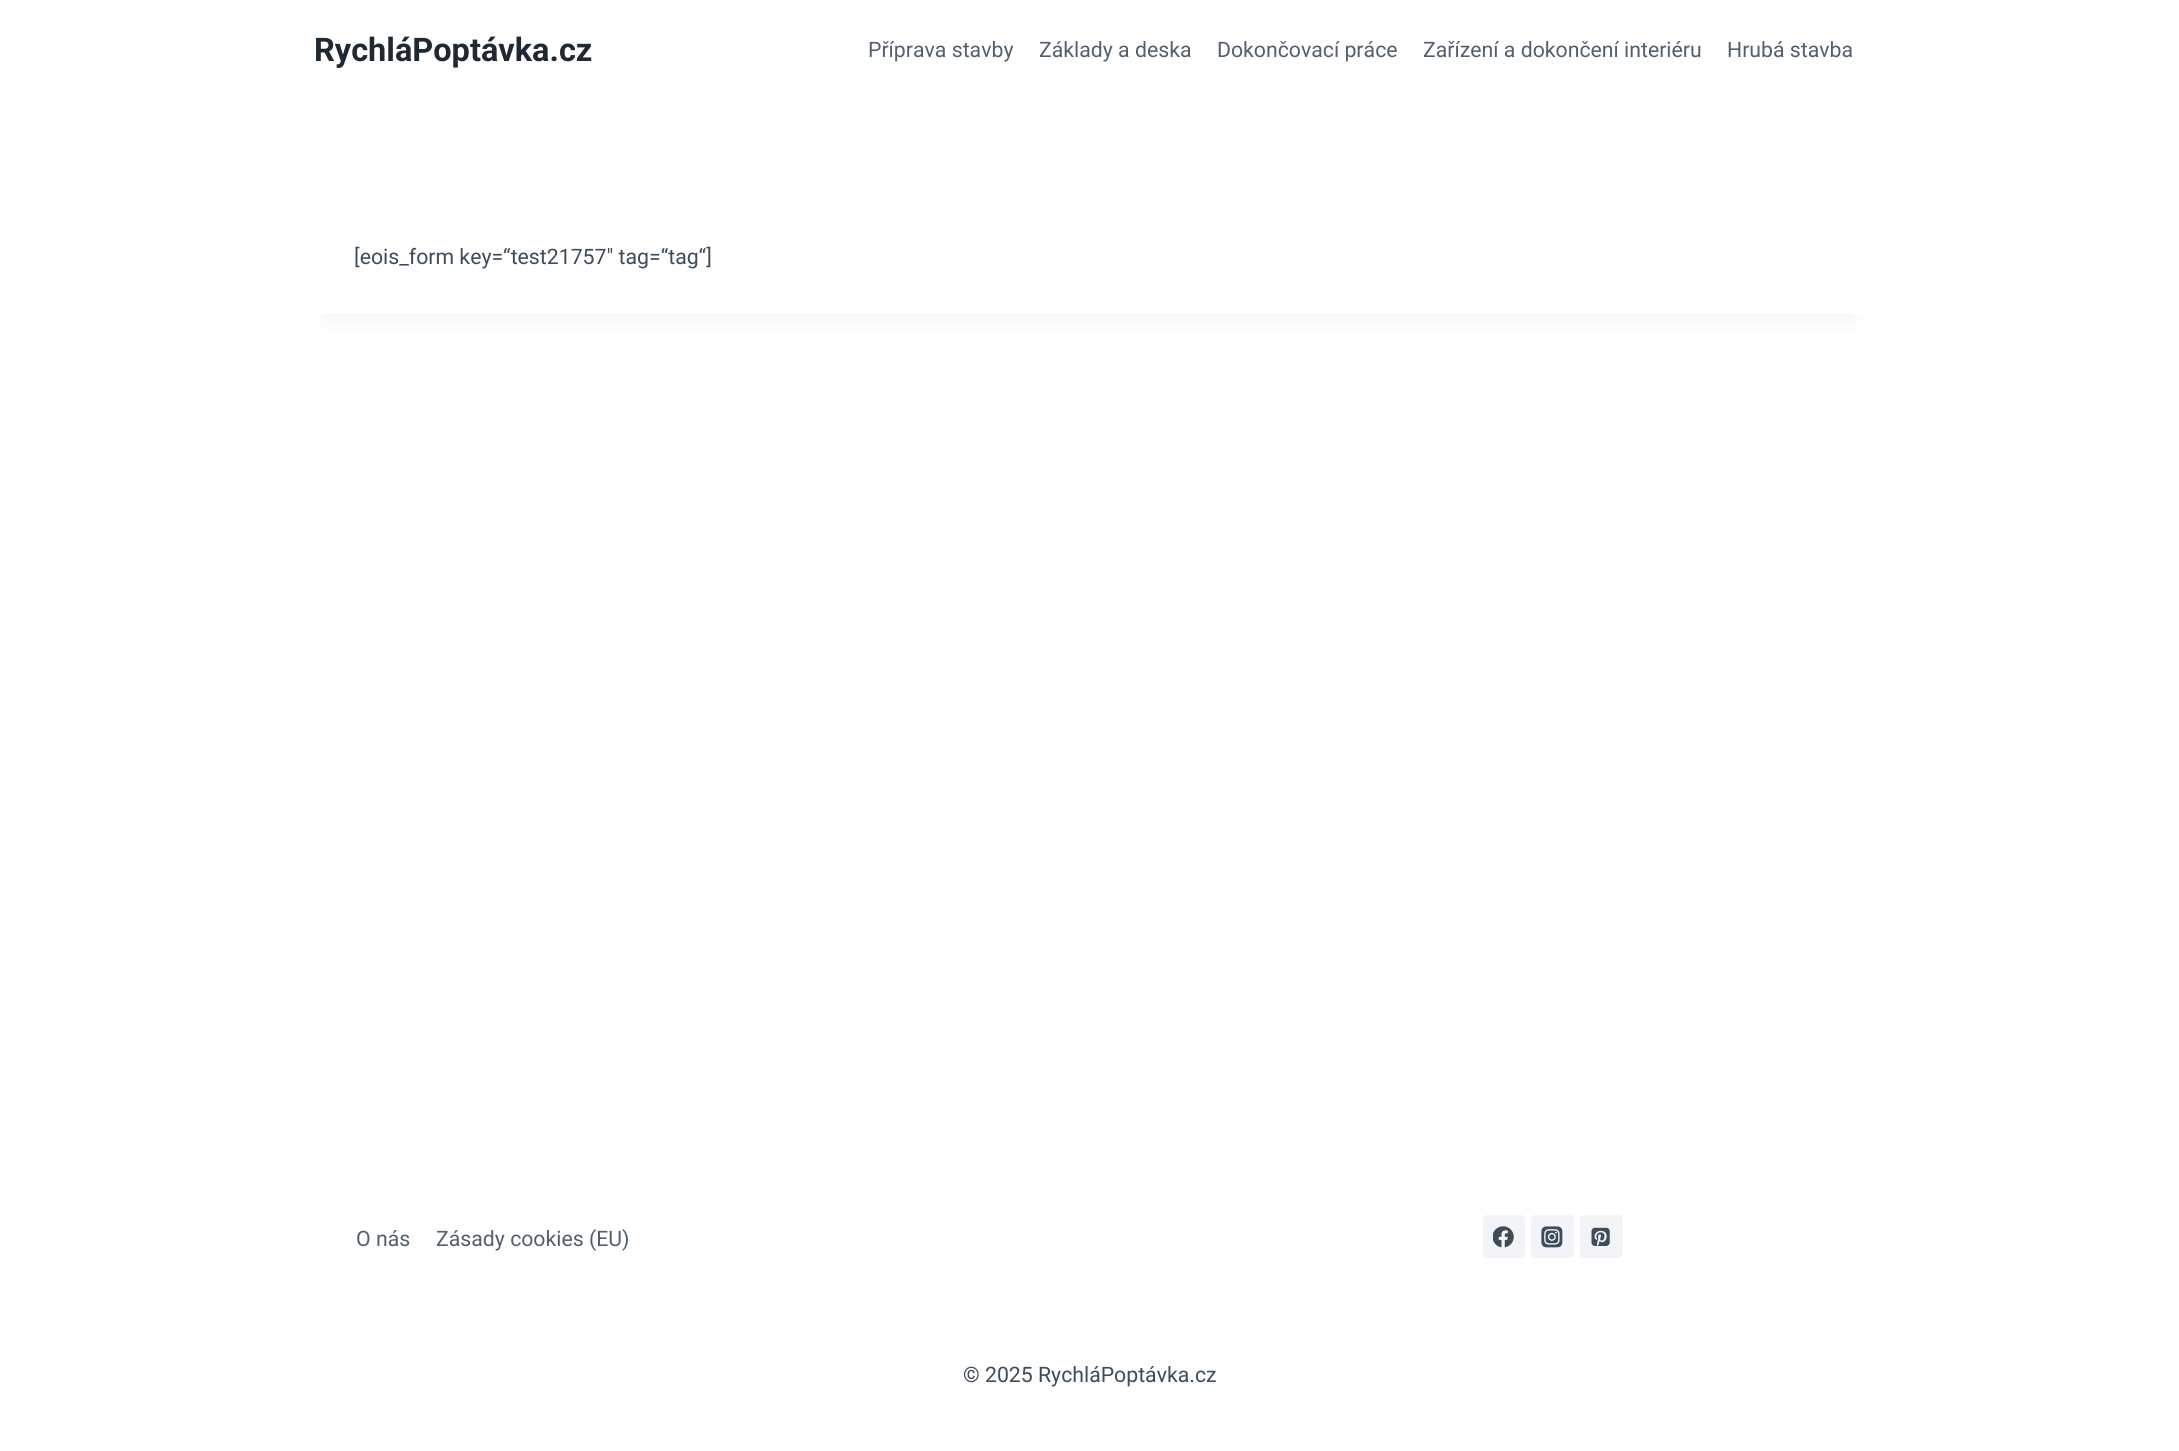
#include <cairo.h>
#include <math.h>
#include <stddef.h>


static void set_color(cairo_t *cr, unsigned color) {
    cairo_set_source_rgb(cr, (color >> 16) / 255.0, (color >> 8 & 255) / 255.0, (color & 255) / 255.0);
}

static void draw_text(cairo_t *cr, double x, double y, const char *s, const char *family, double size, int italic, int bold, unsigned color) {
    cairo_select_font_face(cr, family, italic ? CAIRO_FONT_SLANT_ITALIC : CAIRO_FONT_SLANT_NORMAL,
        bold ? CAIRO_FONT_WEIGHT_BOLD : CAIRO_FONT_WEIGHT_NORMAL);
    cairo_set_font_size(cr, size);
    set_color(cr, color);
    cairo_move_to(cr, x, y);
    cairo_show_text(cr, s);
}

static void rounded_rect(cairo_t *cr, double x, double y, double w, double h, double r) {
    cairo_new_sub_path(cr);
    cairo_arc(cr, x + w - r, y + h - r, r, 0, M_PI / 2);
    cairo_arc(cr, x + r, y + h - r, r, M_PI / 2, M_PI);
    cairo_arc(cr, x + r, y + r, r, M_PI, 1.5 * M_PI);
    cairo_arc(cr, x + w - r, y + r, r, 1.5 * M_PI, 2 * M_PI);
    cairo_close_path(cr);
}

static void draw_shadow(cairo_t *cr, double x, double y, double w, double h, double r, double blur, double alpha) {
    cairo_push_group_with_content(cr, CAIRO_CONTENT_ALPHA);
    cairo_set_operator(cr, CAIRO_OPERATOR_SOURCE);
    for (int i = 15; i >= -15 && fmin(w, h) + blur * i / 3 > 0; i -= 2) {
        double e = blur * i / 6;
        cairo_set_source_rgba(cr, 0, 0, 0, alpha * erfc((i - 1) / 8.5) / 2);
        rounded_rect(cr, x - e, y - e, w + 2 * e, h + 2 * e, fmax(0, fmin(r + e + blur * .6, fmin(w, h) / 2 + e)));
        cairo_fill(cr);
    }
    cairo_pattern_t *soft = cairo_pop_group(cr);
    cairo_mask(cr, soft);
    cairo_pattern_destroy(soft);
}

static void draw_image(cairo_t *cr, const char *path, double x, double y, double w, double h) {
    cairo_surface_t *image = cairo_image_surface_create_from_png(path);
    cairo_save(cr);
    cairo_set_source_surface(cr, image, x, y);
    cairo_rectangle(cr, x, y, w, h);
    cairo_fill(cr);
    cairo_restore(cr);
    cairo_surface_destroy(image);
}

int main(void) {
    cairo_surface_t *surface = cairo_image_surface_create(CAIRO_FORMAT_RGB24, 2179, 1451);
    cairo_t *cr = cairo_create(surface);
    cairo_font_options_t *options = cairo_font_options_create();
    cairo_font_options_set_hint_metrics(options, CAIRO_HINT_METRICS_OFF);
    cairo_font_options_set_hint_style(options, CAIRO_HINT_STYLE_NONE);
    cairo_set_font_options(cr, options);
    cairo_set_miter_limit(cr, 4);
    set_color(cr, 0xFFFFFF);
    cairo_paint(cr);
    draw_text(cr, 314, 61, "RychláPoptávka.cz", "Roboto", 32.5, 0, 1, 0x1F2933);
    draw_text(cr, 868, 57, "Příprava stavby", "Roboto", 21.25, 0, 0, 0x52606D);
    draw_text(cr, 1039, 57, "Základy a deska", "Roboto", 21.25, 0, 0, 0x52606D);
    draw_text(cr, 1217, 57, "Dokončovací práce", "Roboto", 21.25, 0, 0, 0x52606D);
    draw_text(cr, 1423, 57, "Zařízení a dokončení interiéru", "Roboto", 21.25, 0, 0, 0x52606D);
    draw_text(cr, 1727, 57, "Hrubá stavba", "Roboto", 21.25, 0, 0, 0x52606D);
    set_color(cr, 0x000000);
    draw_shadow(cr, 326, 231, 1528, 89, 0, 9.5, 0.05);
    set_color(cr, 0xFFFFFF);
    rounded_rect(cr, 314, 200, 1552, 114, 5);
    cairo_fill(cr);
    draw_text(cr, 354, 264, "[eois_form key=“test21757″ tag=“tag“]", "Roboto", 21.25, 0, 0, 0x3E4C59);
    draw_text(cr, 356, 1246, "O nás", "Roboto", 21.25, 0, 0, 0x52606D);
    draw_text(cr, 436, 1246, "Zásady cookies (EU)", "Roboto", 21.25, 0, 0, 0x52606D);
    set_color(cr, 0xF3F4F7);
    rounded_rect(cr, 1483, 1215, 42, 43, 4);
    cairo_fill(cr);
    draw_image(cr, "assets/img1.png", 1493, 1226, 21, 22);
    rounded_rect(cr, 1531, 1215, 43, 43, 4);
    cairo_fill(cr);
    draw_image(cr, "assets/img2.png", 1541, 1226, 22, 22);
    rounded_rect(cr, 1580, 1215, 43, 43, 4);
    cairo_fill(cr);
    draw_image(cr, "assets/img3.png", 1591, 1227, 19, 19);
    draw_text(cr, 963, 1382, "© 2025 RychláPoptávka.cz", "Roboto", 21.25, 0, 0, 0x3E4C59);
    cairo_surface_write_to_png(surface, "output.png");
    cairo_font_options_destroy(options);
    cairo_destroy(cr);
    cairo_surface_destroy(surface);
    return 0;
}
